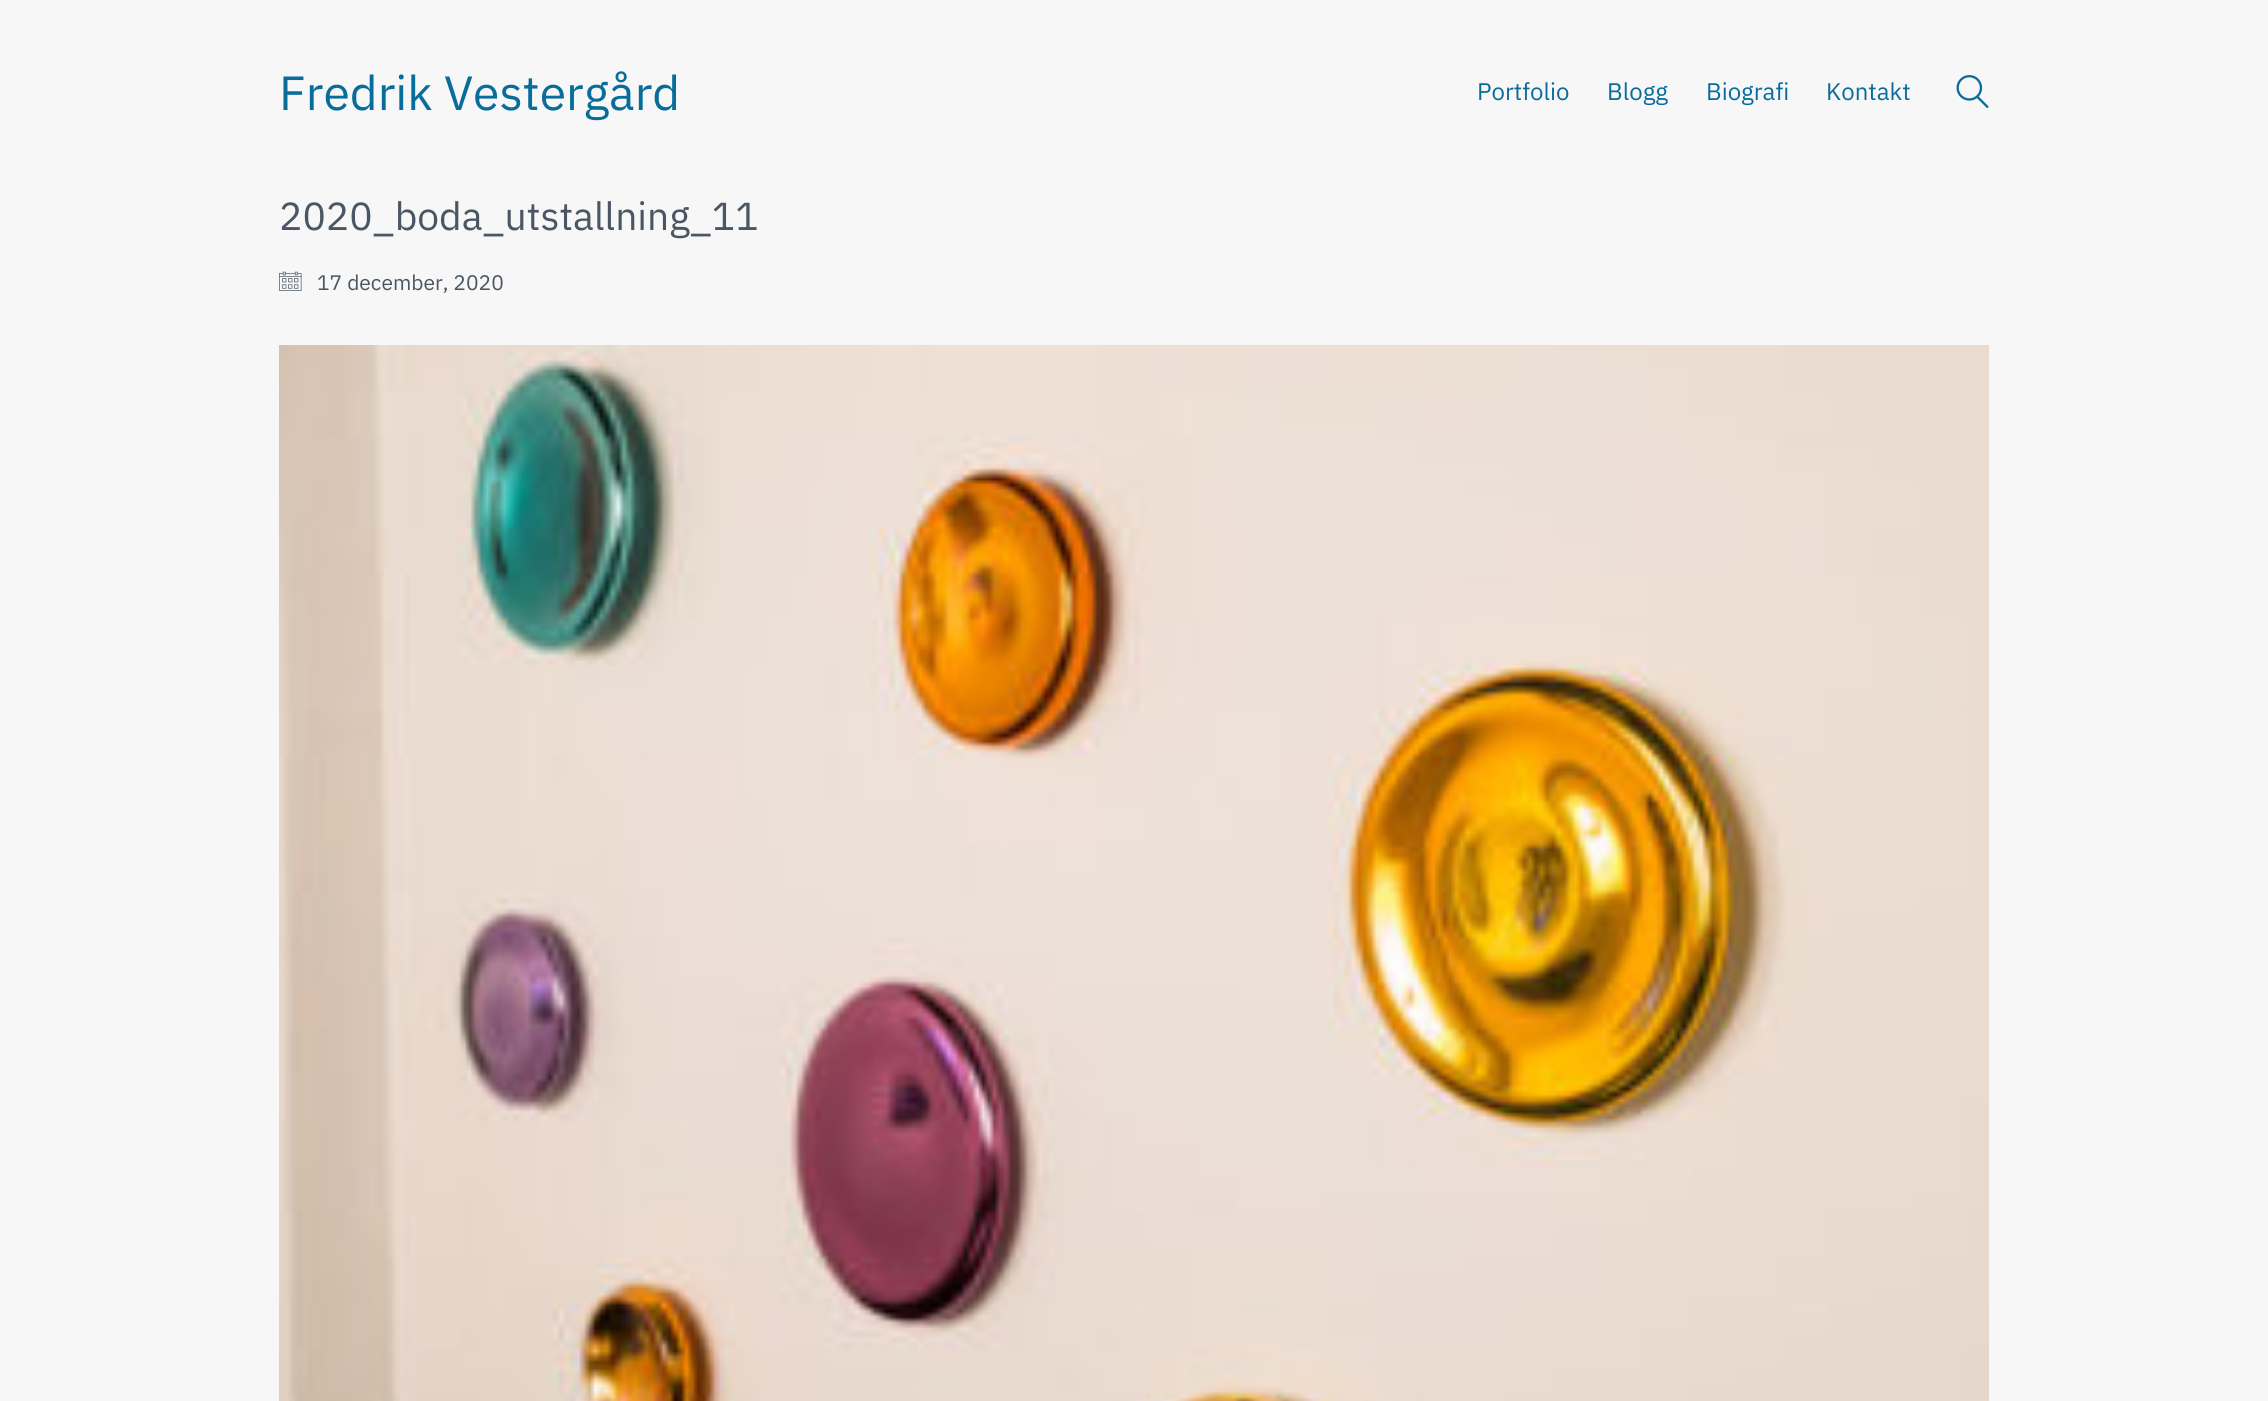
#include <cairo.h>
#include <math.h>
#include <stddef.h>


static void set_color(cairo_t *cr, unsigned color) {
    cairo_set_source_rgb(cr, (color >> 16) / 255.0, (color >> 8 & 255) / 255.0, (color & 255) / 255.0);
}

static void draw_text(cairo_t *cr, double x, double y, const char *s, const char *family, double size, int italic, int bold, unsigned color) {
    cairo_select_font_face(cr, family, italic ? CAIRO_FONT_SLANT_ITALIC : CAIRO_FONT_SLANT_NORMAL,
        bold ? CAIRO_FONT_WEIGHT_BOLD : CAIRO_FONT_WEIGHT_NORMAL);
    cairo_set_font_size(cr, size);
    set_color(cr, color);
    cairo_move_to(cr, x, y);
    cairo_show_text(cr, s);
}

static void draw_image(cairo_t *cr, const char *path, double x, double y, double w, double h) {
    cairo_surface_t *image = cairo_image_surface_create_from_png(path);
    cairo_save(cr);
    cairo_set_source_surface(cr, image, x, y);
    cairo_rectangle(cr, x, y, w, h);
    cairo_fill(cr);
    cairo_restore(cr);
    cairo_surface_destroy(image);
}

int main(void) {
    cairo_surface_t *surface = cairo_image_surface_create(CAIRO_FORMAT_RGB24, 2268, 1401);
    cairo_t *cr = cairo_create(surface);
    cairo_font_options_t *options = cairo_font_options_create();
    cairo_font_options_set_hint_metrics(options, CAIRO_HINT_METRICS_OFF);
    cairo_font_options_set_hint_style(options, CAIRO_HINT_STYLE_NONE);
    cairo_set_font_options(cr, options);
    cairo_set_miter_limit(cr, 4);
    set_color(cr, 0xF7F7F7);
    cairo_paint(cr);
    draw_text(cr, 279, 110, "Fredrik Vestergård", "IBM Plex Sans", 48, 0, 0, 0x096D9B);
    draw_text(cr, 1477, 100, "Portfolio", "IBM Plex Sans", 24, 0, 0, 0x096D9B);
    draw_text(cr, 1607, 100, "Blogg", "IBM Plex Sans", 24, 0, 0, 0x096D9B);
    draw_text(cr, 1706, 100, "Biografi", "IBM Plex Sans", 24, 0, 0, 0x096D9B);
    draw_text(cr, 1826, 100, "Kontakt", "IBM Plex Sans", 24, 0, 0, 0x096D9B);
    draw_image(cr, "assets/img1.png", 1956, 75, 33, 33);
    draw_text(cr, 279, 230, "2020_boda_utstallning_11", "IBM Plex Sans", 39, 0, 0, 0x4A5663);
    draw_image(cr, "assets/img2.png", 279, 271, 23, 20);
    draw_text(cr, 317, 290, "17 december, 2020", "IBM Plex Sans", 21, 0, 0, 0x4A5663);
    draw_image(cr, "assets/img3.png", 279, 345, 1710, 1056);
    cairo_surface_write_to_png(surface, "output.png");
    cairo_font_options_destroy(options);
    cairo_destroy(cr);
    cairo_surface_destroy(surface);
    return 0;
}
